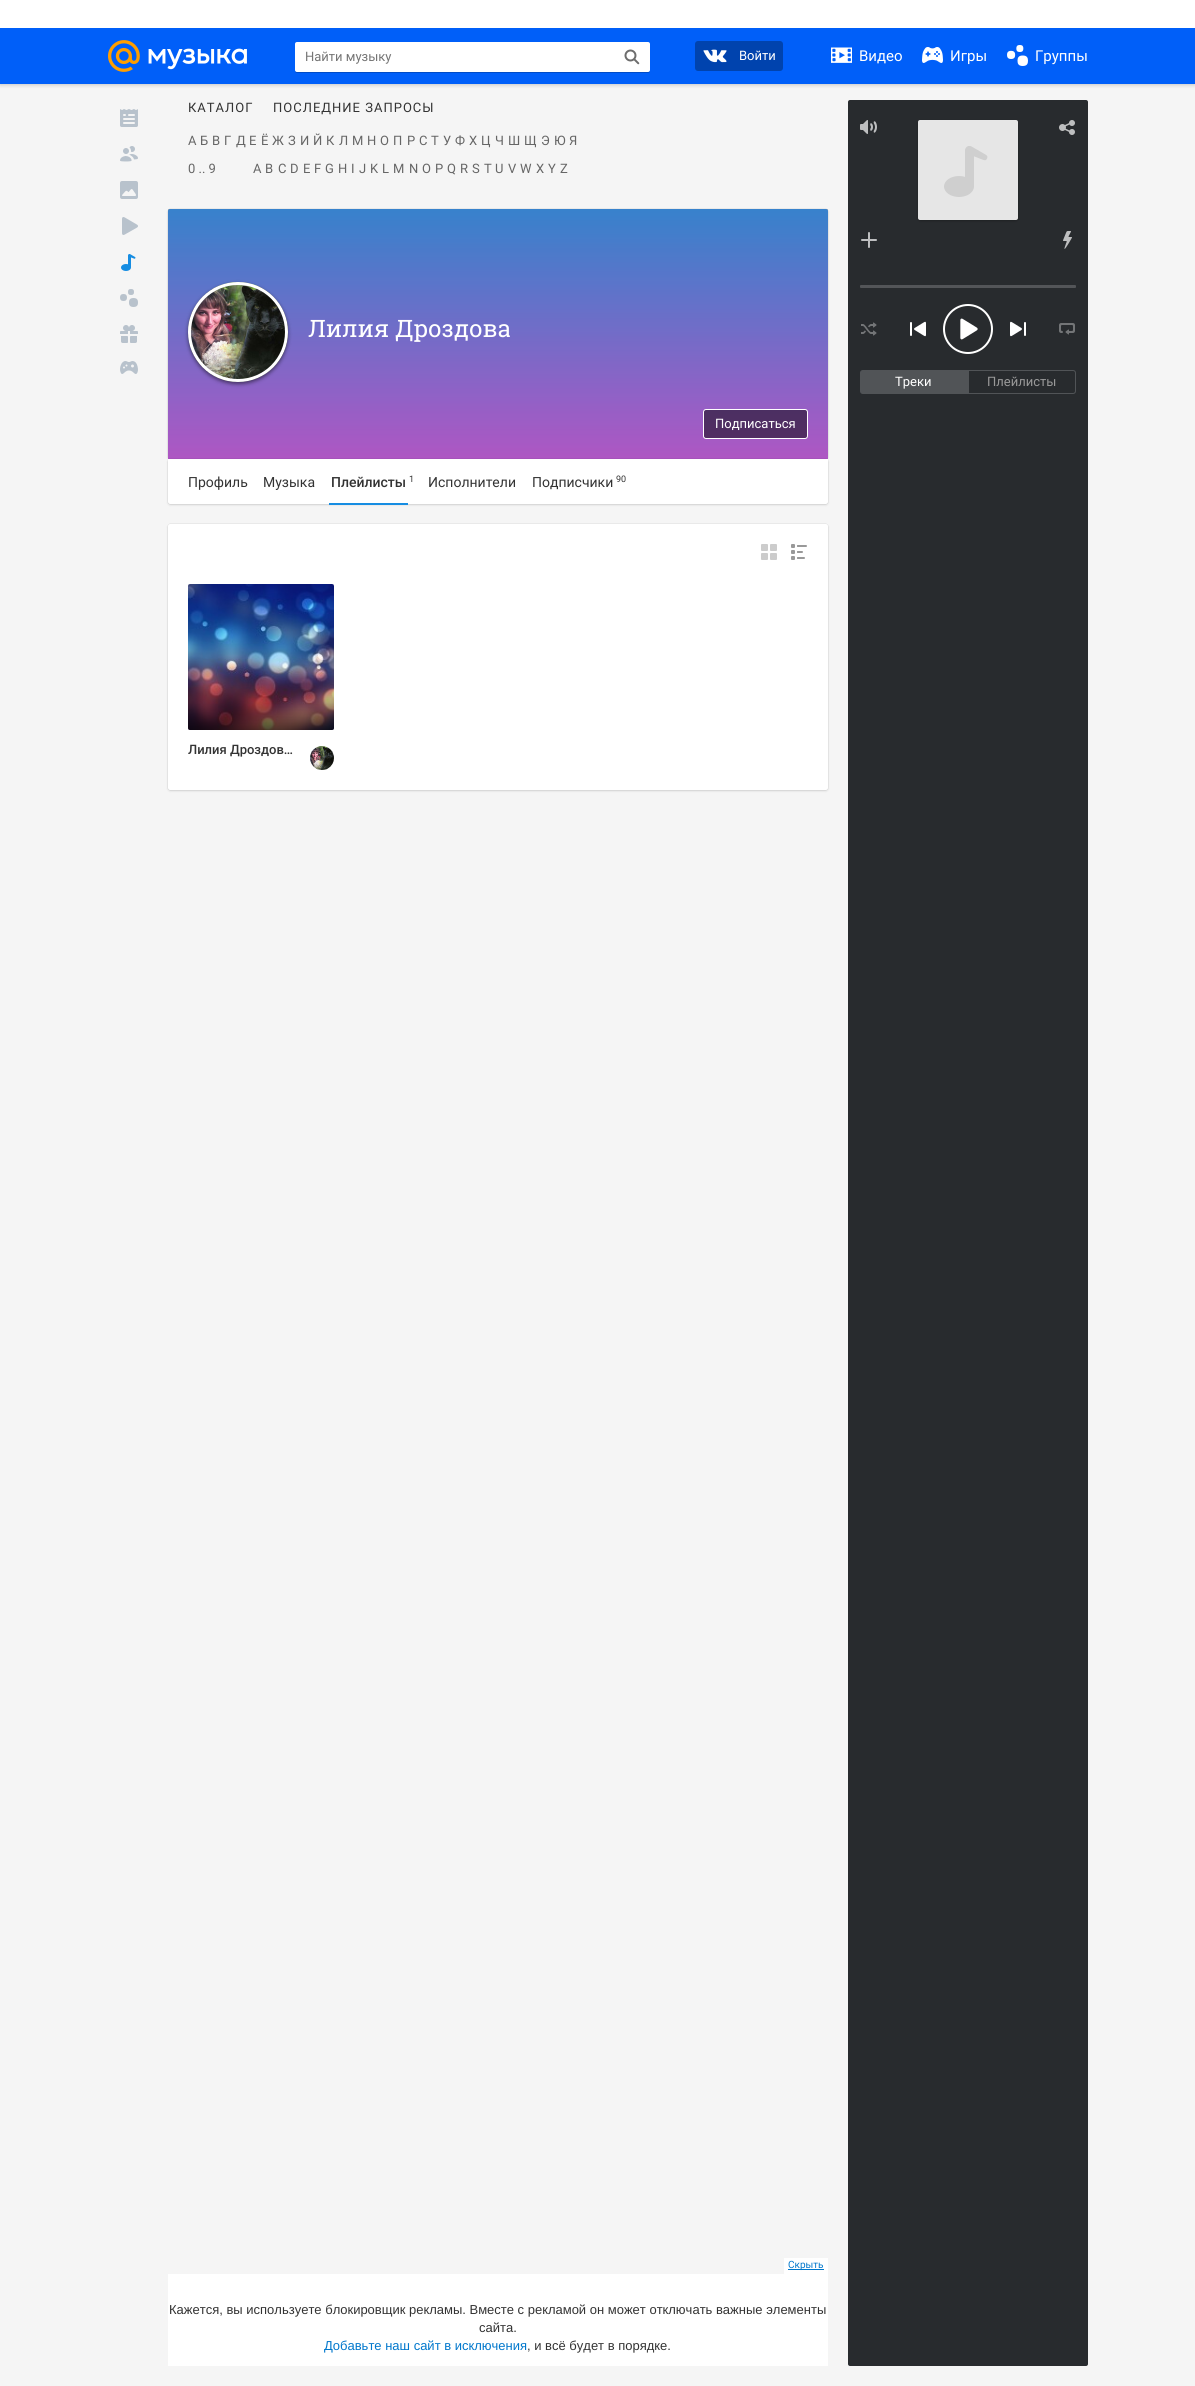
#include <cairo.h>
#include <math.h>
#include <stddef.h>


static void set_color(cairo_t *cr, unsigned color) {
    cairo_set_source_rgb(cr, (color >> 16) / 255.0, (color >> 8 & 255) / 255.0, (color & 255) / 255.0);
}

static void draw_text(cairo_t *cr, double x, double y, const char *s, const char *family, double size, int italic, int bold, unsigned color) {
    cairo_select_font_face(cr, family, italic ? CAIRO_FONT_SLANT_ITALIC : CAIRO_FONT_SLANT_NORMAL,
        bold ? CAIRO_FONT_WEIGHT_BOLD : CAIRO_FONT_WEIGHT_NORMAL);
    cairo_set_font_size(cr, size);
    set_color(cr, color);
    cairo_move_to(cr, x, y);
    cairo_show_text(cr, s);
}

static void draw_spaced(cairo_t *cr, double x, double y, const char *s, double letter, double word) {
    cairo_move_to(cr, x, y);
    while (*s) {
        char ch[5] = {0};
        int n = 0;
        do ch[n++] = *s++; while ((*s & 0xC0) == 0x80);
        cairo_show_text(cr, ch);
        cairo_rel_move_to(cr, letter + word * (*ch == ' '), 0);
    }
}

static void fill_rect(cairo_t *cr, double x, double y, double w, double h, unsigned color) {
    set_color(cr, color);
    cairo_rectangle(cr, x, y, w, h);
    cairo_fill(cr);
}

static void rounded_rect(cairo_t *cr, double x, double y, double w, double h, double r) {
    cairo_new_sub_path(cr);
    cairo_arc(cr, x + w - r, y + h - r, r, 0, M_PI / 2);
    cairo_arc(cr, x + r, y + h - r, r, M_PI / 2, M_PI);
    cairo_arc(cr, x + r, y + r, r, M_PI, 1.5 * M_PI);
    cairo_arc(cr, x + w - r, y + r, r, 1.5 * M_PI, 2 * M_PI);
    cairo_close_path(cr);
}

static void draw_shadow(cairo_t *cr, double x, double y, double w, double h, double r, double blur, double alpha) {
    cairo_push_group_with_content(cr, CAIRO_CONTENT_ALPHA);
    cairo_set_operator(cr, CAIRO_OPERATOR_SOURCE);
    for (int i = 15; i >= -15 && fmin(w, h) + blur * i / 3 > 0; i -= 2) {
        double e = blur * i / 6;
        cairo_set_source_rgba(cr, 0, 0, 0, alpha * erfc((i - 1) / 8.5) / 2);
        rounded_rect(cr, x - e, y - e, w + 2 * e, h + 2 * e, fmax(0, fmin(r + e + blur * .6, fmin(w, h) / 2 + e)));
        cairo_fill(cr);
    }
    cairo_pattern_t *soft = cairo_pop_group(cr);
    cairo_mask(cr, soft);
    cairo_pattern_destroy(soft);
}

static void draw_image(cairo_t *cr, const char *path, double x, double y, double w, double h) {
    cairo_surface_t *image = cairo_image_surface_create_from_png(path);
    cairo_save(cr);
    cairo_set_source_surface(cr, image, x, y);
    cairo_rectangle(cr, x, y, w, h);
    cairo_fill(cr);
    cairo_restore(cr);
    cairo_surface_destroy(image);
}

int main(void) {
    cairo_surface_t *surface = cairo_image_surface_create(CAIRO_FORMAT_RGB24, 1195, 2386);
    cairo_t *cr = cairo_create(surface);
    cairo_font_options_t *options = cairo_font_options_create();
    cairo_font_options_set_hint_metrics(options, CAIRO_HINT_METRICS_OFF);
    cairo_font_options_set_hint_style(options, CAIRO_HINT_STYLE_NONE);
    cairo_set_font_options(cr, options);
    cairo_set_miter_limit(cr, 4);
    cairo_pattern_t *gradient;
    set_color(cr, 0xF5F5F5);
    cairo_paint(cr);
    set_color(cr, 0x000000);
    draw_shadow(cr, 0, 29, 1195, 56, 0, 2, 0.2);
    fill_rect(cr, 0, 0, 1195, 28, 0xFFFFFF);
    fill_rect(cr, 0, 28, 1195, 56, 0x005FF9);
    draw_image(cr, "assets/img1.png", 108, 40, 139, 32);
    set_color(cr, 0x004CC7);
    cairo_new_path(cr);
    cairo_move_to(cr, 295, 70);
    cairo_curve_to(cr, 295, 71, 295, 73, 297, 73);
    cairo_line_to(cr, 648, 73);
    cairo_curve_to(cr, 650, 73, 650, 71, 650, 70);
    cairo_curve_to(cr, 650, 71, 649, 72, 648, 72);
    cairo_line_to(cr, 297, 72);
    cairo_curve_to(cr, 296, 72, 295, 71, 295, 70);
    cairo_close_path(cr);
    cairo_fill(cr);
    set_color(cr, 0xFFFFFF);
    rounded_rect(cr, 295, 42, 355, 30, 2);
    cairo_fill(cr);
    draw_text(cr, 305, 61, "Найти музыку", "Roboto", 13, 0, 0, 0x757575);
    draw_image(cr, "assets/img2.png", 624, 49, 16, 16);
    set_color(cr, 0x0043AE);
    rounded_rect(cr, 695, 41, 88, 30, 3);
    cairo_fill(cr);
    draw_image(cr, "assets/img3.png", 703, 49, 24, 14);
    draw_text(cr, 739, 60, "Войти", "Roboto", 13, 0, 0, 0xFFFFFF);
    draw_image(cr, "assets/img4.png", 831, 47, 21, 16);
    draw_text(cr, 859, 61, "Видео", "Roboto", 15, 0, 0, 0xFFFFFF);
    draw_image(cr, "assets/img5.png", 922, 47, 21, 16);
    draw_text(cr, 950, 61, "Игры", "Roboto", 15, 0, 0, 0xFFFFFF);
    draw_image(cr, "assets/img6.png", 1007, 45, 21, 21);
    draw_text(cr, 1035, 61, "Группы", "Roboto", 15, 0, 0, 0xFFFFFF);
    draw_image(cr, "assets/img7.png", 120, 109, 18, 18);
    draw_image(cr, "assets/img8.png", 120, 146, 18, 16);
    draw_image(cr, "assets/img9.png", 120, 181, 18, 18);
    draw_image(cr, "assets/img10.png", 122, 217, 16, 18);
    draw_image(cr, "assets/img11.png", 121, 254, 15, 17);
    draw_image(cr, "assets/img12.png", 120, 289, 18, 18);
    draw_image(cr, "assets/img13.png", 120, 325, 18, 18);
    draw_image(cr, "assets/img14.png", 120, 361, 18, 13);
    cairo_set_font_size(cr, 13);
    set_color(cr, 0x333333);
    draw_spaced(cr, 188, 112, "КАТАЛОГ", 1, 0);
    draw_spaced(cr, 273, 112, "ПОСЛЕДНИЕ ЗАПРОСЫ", 1, 0);
    draw_text(cr, 188, 145, "А", "Roboto", 13, 0, 0, 0x666666);
    draw_text(cr, 200, 145, "Б", "Roboto", 13, 0, 0, 0x666666);
    draw_text(cr, 212, 145, "В", "Roboto", 13, 0, 0, 0x666666);
    draw_text(cr, 224, 145, "Г", "Roboto", 13, 0, 0, 0x666666);
    draw_text(cr, 236, 145, "Д", "Roboto", 13, 0, 0, 0x666666);
    draw_text(cr, 249, 145, "Е", "Roboto", 13, 0, 0, 0x666666);
    draw_text(cr, 261, 145, "Ё", "Roboto", 13, 0, 0, 0x666666);
    draw_text(cr, 272, 145, "Ж", "Roboto", 13, 0, 0, 0x666666);
    draw_text(cr, 288, 145, "З", "Roboto", 13, 0, 0, 0x666666);
    draw_text(cr, 300, 145, "И", "Roboto", 13, 0, 0, 0x666666);
    draw_text(cr, 313, 145, "Й", "Roboto", 13, 0, 0, 0x666666);
    draw_text(cr, 326, 145, "К", "Roboto", 13, 0, 0, 0x666666);
    draw_text(cr, 339, 145, "Л", "Roboto", 13, 0, 0, 0x666666);
    draw_text(cr, 352, 145, "М", "Roboto", 13, 0, 0, 0x666666);
    draw_text(cr, 367, 145, "Н", "Roboto", 13, 0, 0, 0x666666);
    draw_text(cr, 380, 145, "О", "Roboto", 13, 0, 0, 0x666666);
    draw_text(cr, 393, 145, "П", "Roboto", 13, 0, 0, 0x666666);
    draw_text(cr, 407, 145, "Р", "Roboto", 13, 0, 0, 0x666666);
    draw_text(cr, 419, 145, "С", "Roboto", 13, 0, 0, 0x666666);
    draw_text(cr, 431, 145, "Т", "Roboto", 13, 0, 0, 0x666666);
    draw_text(cr, 443, 145, "У", "Roboto", 13, 0, 0, 0x666666);
    draw_text(cr, 455, 145, "Ф", "Roboto", 13, 0, 0, 0x666666);
    draw_text(cr, 469, 145, "Х", "Roboto", 13, 0, 0, 0x666666);
    draw_text(cr, 481, 145, "Ц", "Roboto", 13, 0, 0, 0x666666);
    draw_text(cr, 495, 145, "Ч", "Roboto", 13, 0, 0, 0x666666);
    draw_text(cr, 508, 145, "Ш", "Roboto", 13, 0, 0, 0x666666);
    draw_text(cr, 524, 145, "Щ", "Roboto", 13, 0, 0, 0x666666);
    draw_text(cr, 541, 145, "Э", "Roboto", 13, 0, 0, 0x666666);
    draw_text(cr, 554, 145, "Ю", "Roboto", 13, 0, 0, 0x666666);
    draw_text(cr, 569, 145, "Я", "Roboto", 13, 0, 0, 0x666666);
    draw_text(cr, 188, 173, "0 .. 9", "Roboto", 13, 0, 0, 0x666666);
    draw_text(cr, 253, 173, "A", "Roboto", 13, 0, 0, 0x666666);
    draw_text(cr, 265, 173, "B", "Roboto", 13, 0, 0, 0x666666);
    draw_text(cr, 278, 173, "C", "Roboto", 13, 0, 0, 0x666666);
    draw_text(cr, 290, 173, "D", "Roboto", 13, 0, 0, 0x666666);
    draw_text(cr, 303, 173, "E", "Roboto", 13, 0, 0, 0x666666);
    draw_text(cr, 314, 173, "F", "Roboto", 13, 0, 0, 0x666666);
    draw_text(cr, 325, 173, "G", "Roboto", 13, 0, 0, 0x666666);
    draw_text(cr, 338, 173, "H", "Roboto", 13, 0, 0, 0x666666);
    draw_text(cr, 351, 173, "I", "Roboto", 13, 0, 0, 0x666666);
    draw_text(cr, 359, 173, "J", "Roboto", 13, 0, 0, 0x666666);
    draw_text(cr, 370, 173, "K", "Roboto", 13, 0, 0, 0x666666);
    draw_text(cr, 382, 173, "L", "Roboto", 13, 0, 0, 0x666666);
    draw_text(cr, 393, 173, "M", "Roboto", 13, 0, 0, 0x666666);
    draw_text(cr, 409, 173, "N", "Roboto", 13, 0, 0, 0x666666);
    draw_text(cr, 422, 173, "O", "Roboto", 13, 0, 0, 0x666666);
    draw_text(cr, 435, 173, "P", "Roboto", 13, 0, 0, 0x666666);
    draw_text(cr, 447, 173, "Q", "Roboto", 13, 0, 0, 0x666666);
    draw_text(cr, 460, 173, "R", "Roboto", 13, 0, 0, 0x666666);
    draw_text(cr, 472, 173, "S", "Roboto", 13, 0, 0, 0x666666);
    draw_text(cr, 484, 173, "T", "Roboto", 13, 0, 0, 0x666666);
    draw_text(cr, 495, 173, "U", "Roboto", 13, 0, 0, 0x666666);
    draw_text(cr, 508, 173, "V", "Roboto", 13, 0, 0, 0x666666);
    draw_text(cr, 520, 173, "W", "Roboto", 13, 0, 0, 0x666666);
    draw_text(cr, 536, 173, "X", "Roboto", 13, 0, 0, 0x666666);
    draw_text(cr, 548, 173, "Y", "Roboto", 13, 0, 0, 0x666666);
    draw_text(cr, 560, 173, "Z", "Roboto", 13, 0, 0, 0x666666);
    set_color(cr, 0x000000);
    draw_shadow(cr, 168, 210, 660, 250, 2, 1, 0.12);
    draw_shadow(cr, 168, 209, 660, 250, 2, 0.5, 0.15);
    gradient = cairo_pattern_create_linear(498, 209, 498, 459);
    cairo_pattern_add_color_stop_rgba(gradient, 0, 0.271, 0.635, 1, 1);
    cairo_pattern_add_color_stop_rgba(gradient, 1, 0.855, 0.424, 0.957, 1);
    cairo_set_source(cr, gradient);
    cairo_pattern_destroy(gradient);
    cairo_new_path(cr);
    cairo_move_to(cr, 170, 209);
    cairo_line_to(cr, 826, 209);
    cairo_curve_to(cr, 827, 209, 828, 210, 828, 211);
    cairo_line_to(cr, 828, 459);
    cairo_line_to(cr, 168, 459);
    cairo_line_to(cr, 168, 211);
    cairo_curve_to(cr, 168, 210, 169, 209, 170, 209);
    cairo_close_path(cr);
    cairo_fill(cr);
    cairo_set_source_rgba(cr, 0, 0, 0, 0.2);
    cairo_rectangle(cr, 168, 209, 660, 250);
    cairo_fill(cr);
    set_color(cr, 0x000000);
    draw_shadow(cr, 188, 284, 100, 100, 50, 2, 0.5);
    draw_image(cr, "assets/img15.png", 188, 282, 100, 100);
    cairo_arc(cr, 238, 332, 48.5, 0, 2 * M_PI);
    set_color(cr, 0xFFFFFF);
    cairo_set_line_width(cr, 3);
    cairo_stroke(cr);
    draw_text(cr, 308, 337, "Лилия Дроздова", "Roboto Slab", 24, 0, 0, 0xFFFFFF);
    cairo_set_source_rgba(cr, 0, 0, 0, 0.5);
    rounded_rect(cr, 703.5, 409.5, 104, 29, 2.5);
    cairo_fill_preserve(cr);
    set_color(cr, 0xFFFFFF);
    cairo_set_line_width(cr, 1);
    cairo_stroke(cr);
    draw_text(cr, 715, 428, "Подписаться", "Roboto", 13, 0, 0, 0xFFFFFF);
    set_color(cr, 0x000000);
    draw_shadow(cr, 168, 460, 660, 45, 2, 1, 0.12);
    draw_shadow(cr, 168, 459, 660, 45, 2, 0.5, 0.15);
    set_color(cr, 0xFFFFFF);
    cairo_new_path(cr);
    cairo_move_to(cr, 168, 459);
    cairo_line_to(cr, 828, 459);
    cairo_line_to(cr, 828, 502);
    cairo_curve_to(cr, 828, 503, 827, 504, 826, 504);
    cairo_line_to(cr, 170, 504);
    cairo_curve_to(cr, 169, 504, 168, 503, 168, 502);
    cairo_close_path(cr);
    cairo_fill(cr);
    draw_text(cr, 188, 487, "Профиль", "Roboto", 14, 0, 0, 0x333333);
    draw_text(cr, 263, 487, "Музыка", "Roboto", 14, 0, 0, 0x333333);
    fill_rect(cr, 329, 503, 79, 2, 0x168DE2);
    draw_text(cr, 331, 487, "Плейлисты", "Roboto Medium", 14, 0, 0, 0x333333);
    draw_text(cr, 409, 482, "1", "Roboto", 9, 0, 0, 0x333333);
    draw_text(cr, 428, 487, "Исполнители", "Roboto", 14, 0, 0, 0x333333);
    draw_text(cr, 532, 487, "Подписчики", "Roboto", 14, 0, 0, 0x333333);
    draw_text(cr, 616, 482, "90", "Roboto", 9, 0, 0, 0x333333);
    set_color(cr, 0x000000);
    draw_shadow(cr, 168, 525, 660, 266, 2, 1, 0.12);
    draw_shadow(cr, 168, 524, 660, 266, 2, 0.5, 0.15);
    set_color(cr, 0xFFFFFF);
    rounded_rect(cr, 168, 524, 660, 266, 2);
    cairo_fill(cr);
    draw_image(cr, "assets/img16.png", 761, 544, 16, 16);
    draw_image(cr, "assets/img17.png", 791, 544, 16, 16);
    draw_image(cr, "assets/img18.png", 188, 584, 146, 146);
    gradient = cairo_pattern_create_linear(261, 657, 261, 730);
    cairo_pattern_add_color_stop_rgba(gradient, 0, 0, 0, 0, 0);
    cairo_pattern_add_color_stop_rgba(gradient, 0.22, 0, 0, 0, 0.05);
    cairo_pattern_add_color_stop_rgba(gradient, 0.34, 0, 0, 0, 0.1);
    cairo_pattern_add_color_stop_rgba(gradient, 0.62, 0, 0, 0, 0.3);
    cairo_pattern_add_color_stop_rgba(gradient, 1, 0, 0, 0, 0.7);
    cairo_set_source(cr, gradient);
    cairo_pattern_destroy(gradient);
    cairo_new_path(cr);
    cairo_move_to(cr, 188, 657);
    cairo_line_to(cr, 334, 657);
    cairo_line_to(cr, 334, 728);
    cairo_curve_to(cr, 334, 729, 333, 730, 332, 730);
    cairo_line_to(cr, 190, 730);
    cairo_curve_to(cr, 189, 730, 188, 729, 188, 728);
    cairo_close_path(cr);
    cairo_fill(cr);
    draw_text(cr, 188, 754, "Лилия Дроздов…", "Roboto Medium", 13, 0, 0, 0x333333);
    draw_image(cr, "assets/img19.png", 310, 746, 24, 24);
    set_color(cr, 0x282B2E);
    rounded_rect(cr, 848, 100, 240, 2266, 2);
    cairo_fill(cr);
    set_color(cr, 0x000000);
    draw_shadow(cr, 918, 121, 100, 100, 2, 1, 0.24);
    set_color(cr, 0xE6E6E6);
    rounded_rect(cr, 918, 120, 100, 100, 2);
    cairo_fill(cr);
    draw_image(cr, "assets/img20.png", 944, 146, 44, 51);
    draw_image(cr, "assets/img21.png", 860, 120, 17, 14);
    draw_image(cr, "assets/img22.png", 1059, 120, 16, 15);
    draw_image(cr, "assets/img23.png", 861, 232, 16, 16);
    draw_image(cr, "assets/img24.png", 1063, 231, 9, 18);
    set_color(cr, 0x535558);
    rounded_rect(cr, 860, 285, 216, 3, 1);
    cairo_fill(cr);
    draw_image(cr, "assets/img25.png", 861, 322, 16, 14);
    draw_image(cr, "assets/img26.png", 910, 321, 16, 16);
    cairo_arc(cr, 968, 329, 24, 0, 2 * M_PI);
    set_color(cr, 0xFFFFFF);
    cairo_set_line_width(cr, 2);
    cairo_stroke(cr);
    draw_image(cr, "assets/img27.png", 960, 318, 18, 22);
    draw_image(cr, "assets/img28.png", 1010, 321, 16, 16);
    draw_image(cr, "assets/img29.png", 1059, 323, 16, 12);
    set_color(cr, 0x515457);
    cairo_new_path(cr);
    cairo_move_to(cr, 863, 370.5);
    cairo_line_to(cr, 967.5, 370.5);
    cairo_line_to(cr, 967.5, 393.5);
    cairo_line_to(cr, 863, 393.5);
    cairo_curve_to(cr, 861.5, 393.5, 860.5, 392.5, 860.5, 391);
    cairo_line_to(cr, 860.5, 373);
    cairo_curve_to(cr, 860.5, 371.5, 861.5, 370.5, 863, 370.5);
    cairo_close_path(cr);
    cairo_fill_preserve(cr);
    cairo_set_line_width(cr, 1);
    cairo_stroke(cr);
    draw_text(cr, 895, 386, "Треки", "Roboto", 13, 0, 0, 0xFFFFFF);
    cairo_new_path(cr);
    cairo_move_to(cr, 968.5, 370.5);
    cairo_line_to(cr, 1073, 370.5);
    cairo_curve_to(cr, 1074.5, 370.5, 1075.5, 371.5, 1075.5, 373);
    cairo_line_to(cr, 1075.5, 391);
    cairo_curve_to(cr, 1075.5, 392.5, 1074.5, 393.5, 1073, 393.5);
    cairo_line_to(cr, 968.5, 393.5);
    cairo_close_path(cr);
    set_color(cr, 0x515457);
    cairo_stroke(cr);
    draw_text(cr, 987, 386, "Плейлисты", "Roboto", 13, 0, 0, 0x999999);
    fill_rect(cr, 168, 2274, 660, 92, 0xFFFFFF);
    fill_rect(cr, 784, 2258, 44, 16, 0xFFFFFF);
    fill_rect(cr, 788, 2269, 36, 1, 0x0077CC);
    draw_text(cr, 788, 2268, "Скрыть", "Roboto", 10, 0, 0, 0x0077CC);
    draw_text(cr, 169, 2314, "Кажется, вы используете блокировщик рекламы. Вместе с рекламой он может отключать важные элементы", "Liberation Sans", 13, 0, 0, 0x333333);
    draw_text(cr, 479, 2332, "сайта.", "Liberation Sans", 13, 0, 0, 0x333333);
    draw_text(cr, 324, 2350, "Добавьте наш сайт в исключения", "Liberation Sans", 13, 0, 0, 0x0077CC);
    draw_text(cr, 527, 2350, ", и всё будет в порядке.", "Liberation Sans", 13, 0, 0, 0x333333);
    cairo_surface_write_to_png(surface, "output.png");
    cairo_font_options_destroy(options);
    cairo_destroy(cr);
    cairo_surface_destroy(surface);
    return 0;
}
